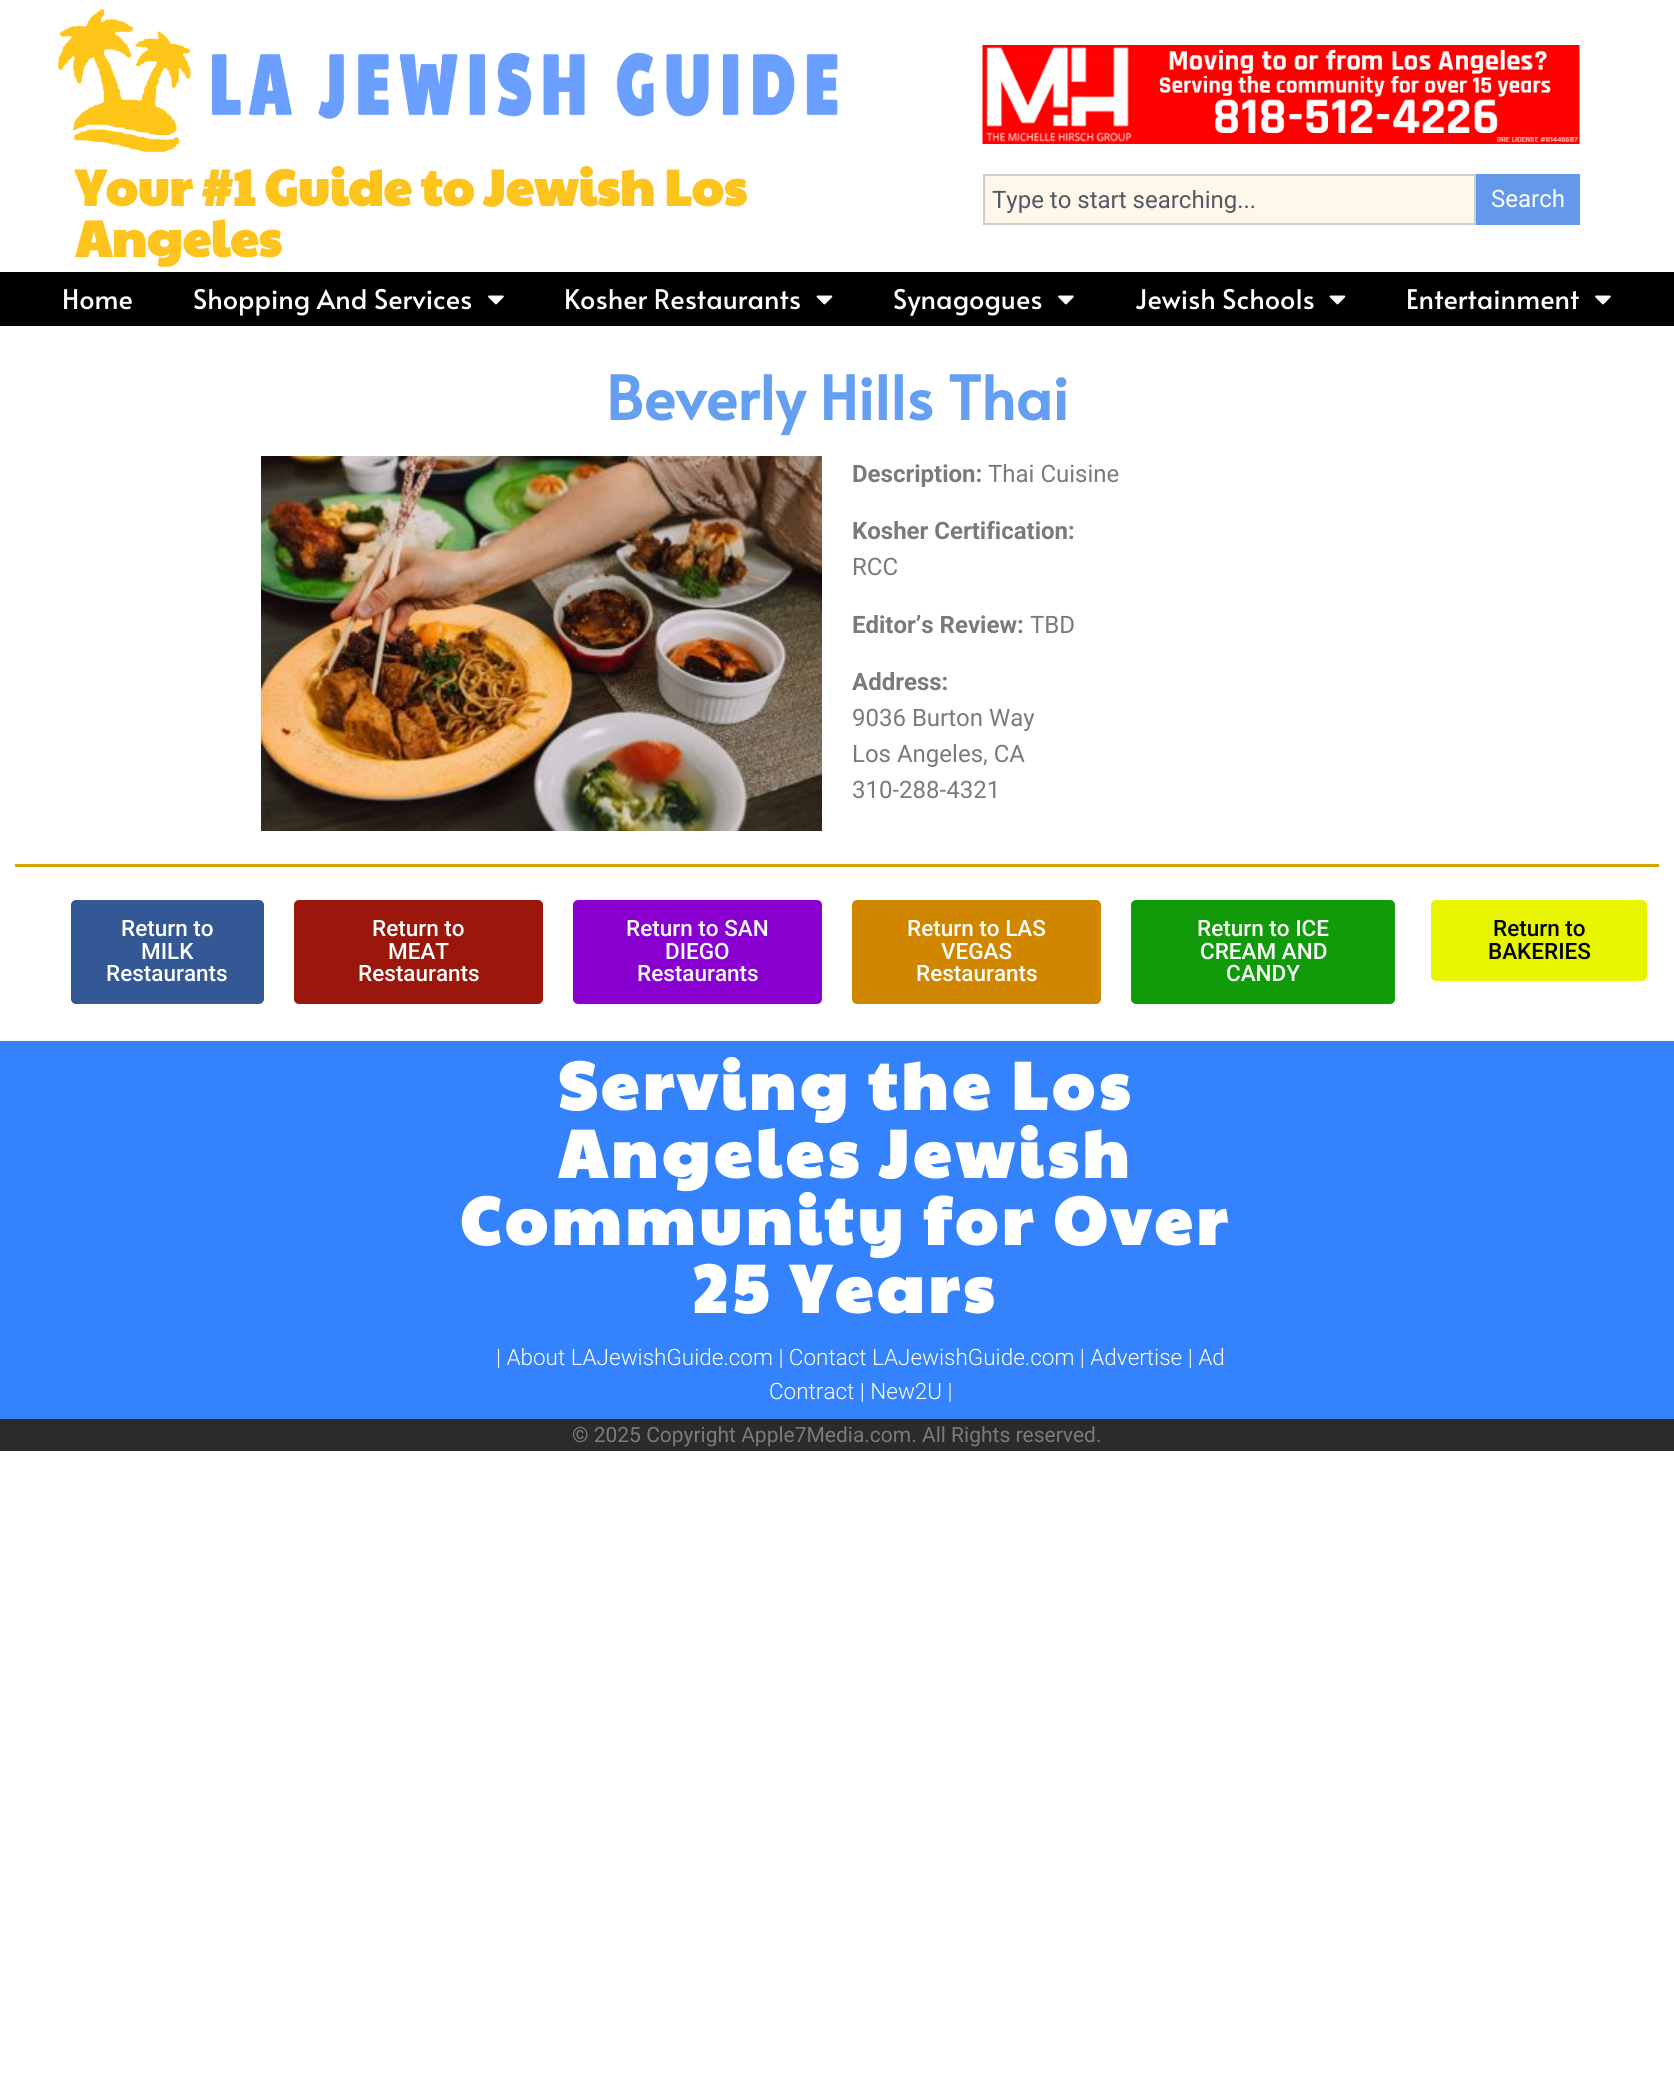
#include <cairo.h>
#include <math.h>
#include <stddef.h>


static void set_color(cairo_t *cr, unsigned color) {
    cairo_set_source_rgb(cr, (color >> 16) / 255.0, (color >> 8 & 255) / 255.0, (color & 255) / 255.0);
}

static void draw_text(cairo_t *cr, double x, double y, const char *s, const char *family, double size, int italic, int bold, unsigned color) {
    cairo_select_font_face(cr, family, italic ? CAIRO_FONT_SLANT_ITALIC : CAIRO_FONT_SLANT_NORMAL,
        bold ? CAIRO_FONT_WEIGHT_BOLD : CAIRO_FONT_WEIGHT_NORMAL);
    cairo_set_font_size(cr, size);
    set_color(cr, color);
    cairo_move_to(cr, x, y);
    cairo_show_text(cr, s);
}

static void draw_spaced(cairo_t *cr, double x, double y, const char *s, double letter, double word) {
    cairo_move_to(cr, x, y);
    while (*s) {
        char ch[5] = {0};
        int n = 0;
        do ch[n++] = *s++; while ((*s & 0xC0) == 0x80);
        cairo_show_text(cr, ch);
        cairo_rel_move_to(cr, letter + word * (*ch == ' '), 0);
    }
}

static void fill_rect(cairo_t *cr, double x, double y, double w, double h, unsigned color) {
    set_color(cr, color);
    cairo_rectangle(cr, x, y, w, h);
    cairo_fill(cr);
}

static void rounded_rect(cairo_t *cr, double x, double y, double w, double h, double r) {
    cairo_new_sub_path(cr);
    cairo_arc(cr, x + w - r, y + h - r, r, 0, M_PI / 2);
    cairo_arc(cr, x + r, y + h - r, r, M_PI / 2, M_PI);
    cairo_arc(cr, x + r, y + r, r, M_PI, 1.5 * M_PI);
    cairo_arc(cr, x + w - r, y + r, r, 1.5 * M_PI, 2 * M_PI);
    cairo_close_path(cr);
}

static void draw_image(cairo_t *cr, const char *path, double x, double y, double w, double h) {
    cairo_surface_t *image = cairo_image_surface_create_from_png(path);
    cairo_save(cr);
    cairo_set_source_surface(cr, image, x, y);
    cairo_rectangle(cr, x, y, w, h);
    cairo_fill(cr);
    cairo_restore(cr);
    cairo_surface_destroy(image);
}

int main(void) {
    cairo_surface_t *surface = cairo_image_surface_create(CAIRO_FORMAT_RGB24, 1674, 2073);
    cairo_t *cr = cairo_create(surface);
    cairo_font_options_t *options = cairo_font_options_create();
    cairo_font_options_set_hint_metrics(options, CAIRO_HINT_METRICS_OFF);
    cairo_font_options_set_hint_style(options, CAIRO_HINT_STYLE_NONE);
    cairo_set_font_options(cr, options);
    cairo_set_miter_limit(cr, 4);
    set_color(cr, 0xFFFFFF);
    cairo_paint(cr);
    draw_image(cr, "assets/img1.png", 58, 9, 780, 144);
    draw_text(cr, 75, 206, "Your #1 Guide to Jewish Los", "Paytone One", 51, 0, 1, 0xFCC41C);
    draw_text(cr, 75, 257, "Angeles", "Paytone One", 51, 0, 1, 0xFCC41C);
    draw_image(cr, "assets/img2.png", 982, 45, 598, 99);
    set_color(cr, 0xFFF7E9);
    cairo_rectangle(cr, 984, 175, 491, 49);
    cairo_fill_preserve(cr);
    set_color(cr, 0xCDCDCD);
    cairo_stroke(cr);
    draw_text(cr, 992, 208, "Type to start searching...", "Roboto", 24, 0, 0, 0x515962);
    fill_rect(cr, 1476, 174, 104, 51, 0x6398EC);
    draw_text(cr, 1491, 207, "Search", "Roboto", 24, 0, 0, 0xFFFFFF);
    fill_rect(cr, 0, 272, 1674, 54, 0x000000);
    draw_text(cr, 62, 309, "Home", "Alata", 27, 0, 0, 0xFFFFFF);
    draw_text(cr, 193, 309, "Shopping And Services", "Alata", 27, 0, 0, 0xFFFFFF);
    draw_image(cr, "assets/img3.png", 488, 295, 16, 10);
    draw_text(cr, 564, 309, "Kosher Restaurants", "Alata", 27, 0, 0, 0xFFFFFF);
    draw_image(cr, "assets/img4.png", 816, 295, 17, 10);
    draw_text(cr, 893, 309, "Synagogues", "Alata", 27, 0, 0, 0xFFFFFF);
    draw_image(cr, "assets/img3.png", 1058, 295, 16, 10);
    draw_text(cr, 1135, 309, "Jewish Schools", "Alata", 27, 0, 0, 0xFFFFFF);
    draw_image(cr, "assets/img4.png", 1329, 295, 17, 10);
    draw_text(cr, 1406, 309, "Entertainment", "Alata", 27, 0, 0, 0xFFFFFF);
    draw_image(cr, "assets/img3.png", 1595, 295, 16, 10);
    draw_text(cr, 606, 420, "Beverly Hills Thai", "Alata", 60, 0, 1, 0x659FF1);
    draw_image(cr, "assets/img5.png", 261, 456, 561, 375);
    draw_text(cr, 852, 482, "Description:", "Roboto", 24, 0, 1, 0x7A7A7A);
    draw_text(cr, 988, 482, "Thai Cuisine", "Roboto", 24, 0, 0, 0x7A7A7A);
    draw_text(cr, 852, 539, "Kosher Certification:", "Roboto", 24, 0, 1, 0x7A7A7A);
    draw_text(cr, 852, 575, "RCC", "Roboto", 24, 0, 0, 0x7A7A7A);
    draw_text(cr, 852, 633, "Editor’s Review:", "Roboto", 24, 0, 1, 0x7A7A7A);
    draw_text(cr, 1030, 633, "TBD", "Roboto", 24, 0, 0, 0x7A7A7A);
    draw_text(cr, 852, 690, "Address:", "Roboto", 24, 0, 1, 0x7A7A7A);
    draw_text(cr, 852, 726, "9036 Burton Way", "Roboto", 24, 0, 0, 0x7A7A7A);
    draw_text(cr, 852, 762, "Los Angeles, CA", "Roboto", 24, 0, 0, 0x7A7A7A);
    draw_text(cr, 852, 798, "310-288-4321", "Roboto", 24, 0, 0, 0x7A7A7A);
    fill_rect(cr, 15, 864, 1644, 3, 0xD1A600);
    set_color(cr, 0x345895);
    rounded_rect(cr, 71, 900, 193, 104, 5);
    cairo_fill(cr);
    draw_text(cr, 121, 936, "Return to", "Roboto Medium", 22.5, 0, 0, 0xFFFFFF);
    draw_text(cr, 141, 959, "MILK", "Roboto Medium", 22.5, 0, 0, 0xFFFFFF);
    draw_text(cr, 106, 981, "Restaurants", "Roboto Medium", 22.5, 0, 0, 0xFFFFFF);
    set_color(cr, 0x9B170B);
    rounded_rect(cr, 294, 900, 249, 104, 5);
    cairo_fill(cr);
    draw_text(cr, 372, 936, "Return to", "Roboto Medium", 22.5, 0, 0, 0xFFFFFF);
    draw_text(cr, 388, 959, "MEAT", "Roboto Medium", 22.5, 0, 0, 0xFFFFFF);
    draw_text(cr, 358, 981, "Restaurants", "Roboto Medium", 22.5, 0, 0, 0xFFFFFF);
    set_color(cr, 0x8900D1);
    rounded_rect(cr, 573, 900, 249, 104, 5);
    cairo_fill(cr);
    draw_text(cr, 626, 936, "Return to SAN", "Roboto Medium", 22.5, 0, 0, 0xFFFFFF);
    draw_text(cr, 665, 959, "DIEGO", "Roboto Medium", 22.5, 0, 0, 0xFFFFFF);
    draw_text(cr, 637, 981, "Restaurants", "Roboto Medium", 22.5, 0, 0, 0xFFFFFF);
    set_color(cr, 0xD18600);
    rounded_rect(cr, 852, 900, 249, 104, 5);
    cairo_fill(cr);
    draw_text(cr, 907, 936, "Return to LAS", "Roboto Medium", 22.5, 0, 0, 0xFFFFFF);
    draw_text(cr, 941, 959, "VEGAS", "Roboto Medium", 22.5, 0, 0, 0xFFFFFF);
    draw_text(cr, 916, 981, "Restaurants", "Roboto Medium", 22.5, 0, 0, 0xFFFFFF);
    set_color(cr, 0x119B0B);
    rounded_rect(cr, 1131, 900, 264, 104, 5);
    cairo_fill(cr);
    draw_text(cr, 1197, 936, "Return to ICE", "Roboto Medium", 22.5, 0, 0, 0xFFFFFF);
    draw_text(cr, 1200, 959, "CREAM AND", "Roboto Medium", 22.5, 0, 0, 0xFFFFFF);
    draw_text(cr, 1226, 981, "CANDY", "Roboto Medium", 22.5, 0, 0, 0xFFFFFF);
    set_color(cr, 0xE7F500);
    rounded_rect(cr, 1431, 900, 216, 81, 5);
    cairo_fill(cr);
    draw_text(cr, 1493, 936, "Return to", "Roboto Medium", 22.5, 0, 0, 0x000000);
    draw_text(cr, 1488, 959, "BAKERIES", "Roboto Medium", 22.5, 0, 0, 0x000000);
    fill_rect(cr, 0, 1041, 1674, 378, 0x3582FD);
    cairo_select_font_face(cr, "Paytone One", CAIRO_FONT_SLANT_NORMAL, CAIRO_FONT_WEIGHT_BOLD);
    cairo_set_font_size(cr, 67.5);
    set_color(cr, 0xFFFFFF);
    draw_spaced(cr, 558, 1110, "Serving the Los", 4.5, 0);
    draw_spaced(cr, 558, 1178, "Angeles Jewish", 4.5, 0);
    draw_spaced(cr, 460, 1245, "Community for Over", 4.5, 0);
    draw_spaced(cr, 692, 1313, "25 Years", 4.5, 0);
    draw_text(cr, 496, 1365, "| About LAJewishGuide.com | Contact LAJewishGuide.com | Advertise | Ad", "Roboto Light", 22.5, 0, 0, 0xFFFFFF);
    draw_text(cr, 769, 1399, "Contract | New2U |", "Roboto Light", 22.5, 0, 0, 0xFFFFFF);
    fill_rect(cr, 0, 1419, 1674, 32, 0x2B2B2B);
    draw_text(cr, 572, 1442, "© 2025 Copyright Apple7Media.com. All Rights reserved.", "Roboto", 21, 0, 0, 0x7A7A7A);
    cairo_surface_write_to_png(surface, "output.png");
    cairo_font_options_destroy(options);
    cairo_destroy(cr);
    cairo_surface_destroy(surface);
    return 0;
}
